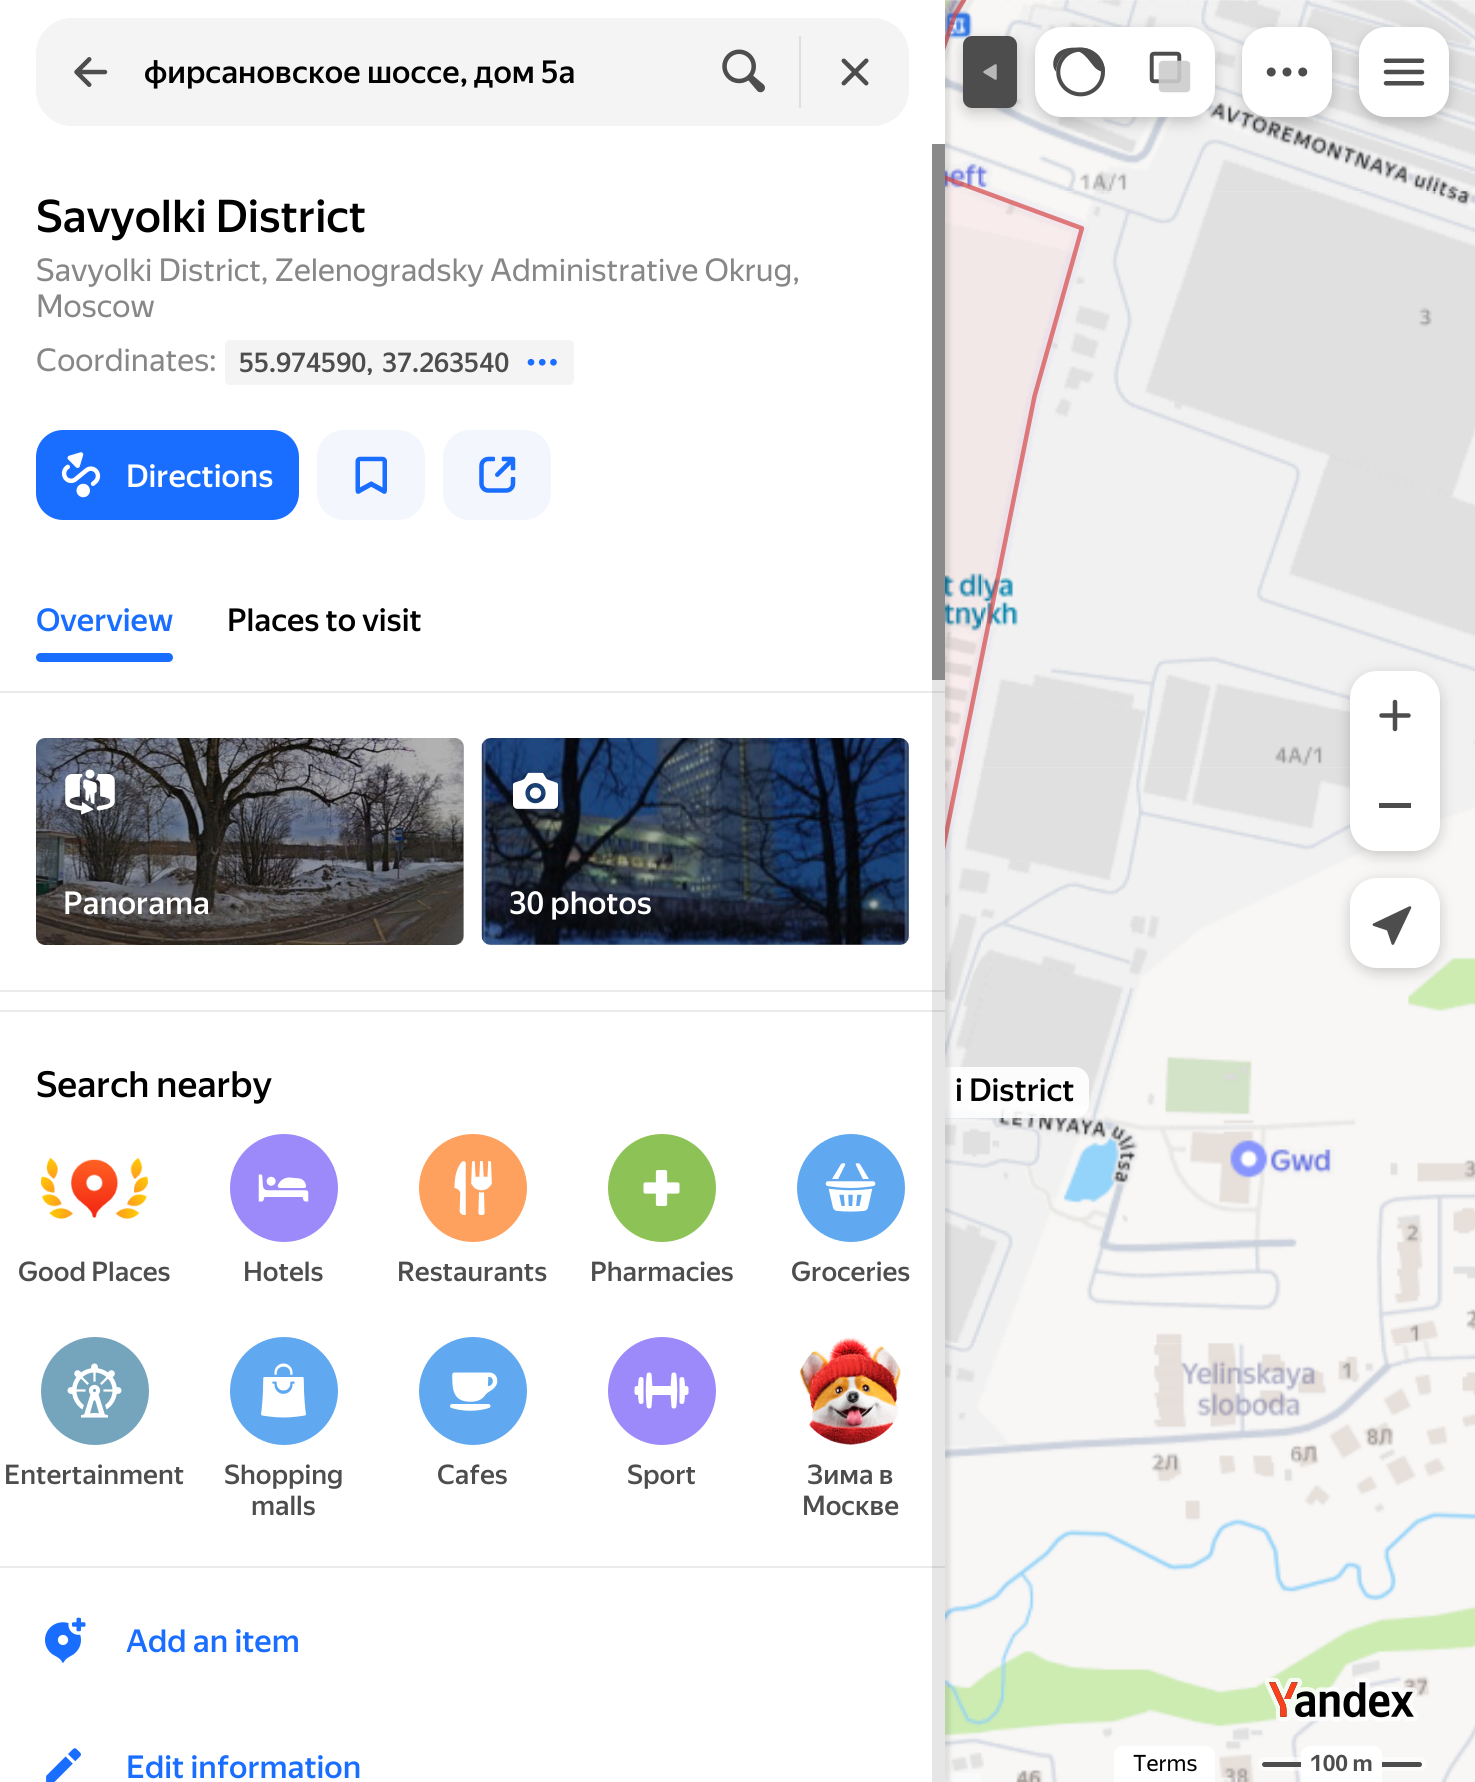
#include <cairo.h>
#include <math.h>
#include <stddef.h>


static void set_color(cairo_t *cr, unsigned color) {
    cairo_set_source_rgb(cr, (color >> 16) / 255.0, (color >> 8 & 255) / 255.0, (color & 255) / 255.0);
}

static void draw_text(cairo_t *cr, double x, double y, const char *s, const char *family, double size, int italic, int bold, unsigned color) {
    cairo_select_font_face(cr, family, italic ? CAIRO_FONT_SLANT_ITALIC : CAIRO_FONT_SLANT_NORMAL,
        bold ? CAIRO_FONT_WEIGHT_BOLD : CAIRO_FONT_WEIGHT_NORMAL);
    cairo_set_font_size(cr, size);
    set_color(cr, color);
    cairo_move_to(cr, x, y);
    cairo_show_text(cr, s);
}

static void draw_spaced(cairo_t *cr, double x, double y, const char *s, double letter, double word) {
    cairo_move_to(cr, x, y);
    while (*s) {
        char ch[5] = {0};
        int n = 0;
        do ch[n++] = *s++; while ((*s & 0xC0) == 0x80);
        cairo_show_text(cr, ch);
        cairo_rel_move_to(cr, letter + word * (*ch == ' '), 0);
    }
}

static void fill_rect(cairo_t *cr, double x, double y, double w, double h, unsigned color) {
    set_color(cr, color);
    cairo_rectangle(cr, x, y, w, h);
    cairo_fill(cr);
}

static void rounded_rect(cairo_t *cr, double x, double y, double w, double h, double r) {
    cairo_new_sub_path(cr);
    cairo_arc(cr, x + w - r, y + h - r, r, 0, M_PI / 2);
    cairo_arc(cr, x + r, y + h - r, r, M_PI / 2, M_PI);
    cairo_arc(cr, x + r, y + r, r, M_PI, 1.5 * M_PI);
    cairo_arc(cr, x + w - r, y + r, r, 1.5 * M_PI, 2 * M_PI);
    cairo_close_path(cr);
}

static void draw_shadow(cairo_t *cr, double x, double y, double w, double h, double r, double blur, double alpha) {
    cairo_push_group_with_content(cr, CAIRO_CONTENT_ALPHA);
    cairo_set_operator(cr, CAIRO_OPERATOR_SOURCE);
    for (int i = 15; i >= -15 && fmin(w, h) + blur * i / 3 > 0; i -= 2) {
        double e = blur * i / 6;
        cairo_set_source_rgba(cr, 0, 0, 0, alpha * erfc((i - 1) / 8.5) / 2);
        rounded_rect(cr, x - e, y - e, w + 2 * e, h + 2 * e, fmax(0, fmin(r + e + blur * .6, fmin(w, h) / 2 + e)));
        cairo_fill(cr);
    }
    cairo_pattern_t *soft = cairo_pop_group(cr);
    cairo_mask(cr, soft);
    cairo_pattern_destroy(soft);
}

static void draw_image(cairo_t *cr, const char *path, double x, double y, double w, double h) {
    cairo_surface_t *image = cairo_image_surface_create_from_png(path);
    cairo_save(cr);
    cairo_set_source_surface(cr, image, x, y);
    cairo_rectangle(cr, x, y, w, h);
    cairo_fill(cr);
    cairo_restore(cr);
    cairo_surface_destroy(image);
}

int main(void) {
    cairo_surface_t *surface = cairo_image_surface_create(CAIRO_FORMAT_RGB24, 1475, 1782);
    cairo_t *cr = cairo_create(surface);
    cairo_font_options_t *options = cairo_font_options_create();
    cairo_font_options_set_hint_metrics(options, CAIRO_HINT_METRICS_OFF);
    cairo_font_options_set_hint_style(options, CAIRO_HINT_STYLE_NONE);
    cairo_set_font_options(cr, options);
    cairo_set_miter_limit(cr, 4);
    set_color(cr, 0xFFFFFF);
    cairo_paint(cr);
    draw_image(cr, "assets/img1.png", 945, 0, 530, 1782);
    draw_image(cr, "assets/img33.png", 945, 0, 36, 191);
    draw_image(cr, "assets/img35.png", 945, 191, 36, 577);
    draw_image(cr, "assets/img37.png", 945, 767, 36, 577);
    draw_image(cr, "assets/img39.png", 945, 1343, 36, 430);
    draw_image(cr, "assets/img34.png", 981, 0, 494, 192);
    draw_image(cr, "assets/img36.png", 981, 191, 494, 577);
    draw_image(cr, "assets/img38.png", 981, 767, 494, 577);
    draw_image(cr, "assets/img41.png", 945, 0, 140, 850);
    cairo_set_source_rgba(cr, 1, 1, 1, 0.9);
    cairo_new_path(cr);
    cairo_move_to(cr, 945, 1067);
    cairo_line_to(cr, 1075, 1067);
    cairo_curve_to(cr, 1082.5, 1067, 1089, 1073.5, 1089, 1081);
    cairo_line_to(cr, 1089, 1104);
    cairo_curve_to(cr, 1089, 1111.5, 1082.5, 1118, 1075, 1118);
    cairo_line_to(cr, 945, 1118);
    cairo_close_path(cr);
    cairo_fill(cr);
    set_color(cr, 0x000000);
    draw_shadow(cr, 5, 0, 945, 1782, 0, 2, 0.1);
    draw_shadow(cr, 1035, 32, 180, 90, 27, 7, 0.2);
    set_color(cr, 0xFFFFFF);
    cairo_new_path(cr);
    cairo_move_to(cr, 1062, 27);
    cairo_line_to(cr, 1125, 27);
    cairo_line_to(cr, 1125, 117);
    cairo_line_to(cr, 1062, 117);
    cairo_curve_to(cr, 1047, 117, 1035, 105, 1035, 90);
    cairo_line_to(cr, 1035, 54);
    cairo_curve_to(cr, 1035, 39, 1047, 27, 1062, 27);
    cairo_close_path(cr);
    cairo_fill(cr);
    set_color(cr, 0x000000);
    draw_shadow(cr, 963, 41, 54, 72, 9, 7, 0.2);
    fill_rect(cr, 2, 0, 943, 1782, 0xFFFFFF);
    set_color(cr, 0xF4F4F4);
    rounded_rect(cr, 36, 18, 873, 108, 36);
    cairo_fill(cr);
    draw_image(cr, "assets/img2.png", 74, 57, 34, 30);
    draw_text(cr, 144, 83, "фирсановское шоссе, дом 5а", "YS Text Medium", 31.5, 0, 0, 0x000000);
    draw_image(cr, "assets/img3.png", 722, 49, 43, 44);
    fill_rect(cr, 799, 36, 2, 72, 0xE0E0E0);
    draw_image(cr, "assets/img4.png", 841, 58, 28, 28);
    draw_image(cr, "assets/img5.png", 1053, 47, 52, 50);
    set_color(cr, 0xFFFFFF);
    cairo_new_path(cr);
    cairo_move_to(cr, 1125, 27);
    cairo_line_to(cr, 1188, 27);
    cairo_curve_to(cr, 1203, 27, 1215, 39, 1215, 54);
    cairo_line_to(cr, 1215, 90);
    cairo_curve_to(cr, 1215, 105, 1203, 117, 1188, 117);
    cairo_line_to(cr, 1125, 117);
    cairo_close_path(cr);
    cairo_fill(cr);
    draw_image(cr, "assets/img6.png", 1149, 51, 42, 42);
    set_color(cr, 0x000000);
    draw_shadow(cr, 1242, 32, 90, 90, 27, 7, 0.2);
    set_color(cr, 0xFFFFFF);
    rounded_rect(cr, 1242, 27, 90, 90, 27);
    cairo_fill(cr);
    draw_image(cr, "assets/img7.png", 1266, 67, 42, 10);
    set_color(cr, 0x000000);
    draw_shadow(cr, 1359, 32, 90, 90, 27, 7, 0.2);
    set_color(cr, 0xFFFFFF);
    rounded_rect(cr, 1359, 27, 90, 90, 27);
    cairo_fill(cr);
    draw_image(cr, "assets/img8.png", 1383, 58, 42, 28);
    set_color(cr, 0x000000);
    draw_shadow(cr, 1350, 675, 90, 180, 27, 7, 0.2);
    set_color(cr, 0xFFFFFF);
    cairo_new_path(cr);
    cairo_move_to(cr, 1377, 671);
    cairo_line_to(cr, 1413, 671);
    cairo_curve_to(cr, 1428, 671, 1440, 683, 1440, 698);
    cairo_line_to(cr, 1440, 761);
    cairo_line_to(cr, 1350, 761);
    cairo_line_to(cr, 1350, 698);
    cairo_curve_to(cr, 1350, 683, 1362, 671, 1377, 671);
    cairo_close_path(cr);
    cairo_fill(cr);
    draw_image(cr, "assets/img9.png", 1379, 699, 32, 33);
    cairo_new_path(cr);
    cairo_move_to(cr, 1350, 761);
    cairo_line_to(cr, 1440, 761);
    cairo_line_to(cr, 1440, 824);
    cairo_curve_to(cr, 1440, 839, 1428, 851, 1413, 851);
    cairo_line_to(cr, 1377, 851);
    cairo_curve_to(cr, 1362, 851, 1350, 839, 1350, 824);
    cairo_close_path(cr);
    cairo_fill(cr);
    fill_rect(cr, 1379, 803, 32, 5, 0x4D4D4D);
    set_color(cr, 0x000000);
    draw_shadow(cr, 1350, 882, 90, 90, 27, 7, 0.2);
    set_color(cr, 0xFFFFFF);
    rounded_rect(cr, 1350, 878, 90, 90, 27);
    cairo_fill(cr);
    draw_image(cr, "assets/img10.png", 1372, 906, 40, 39);
    set_color(cr, 0x4D4D4D);
    rounded_rect(cr, 963, 36, 54, 72, 9);
    cairo_fill(cr);
    draw_image(cr, "assets/img11.png", 983, 64, 14, 16);
    draw_text(cr, 36, 232, "Savyolki District", "YS Text Medium", 45, 0, 0, 0x000000);
    draw_text(cr, 36, 281, "Savyolki District, Zelenogradsky Administrative Okrug,", "YS Text", 31.5, 0, 0, 0x878787);
    draw_text(cr, 36, 317, "Moscow", "YS Text", 31.5, 0, 0, 0x878787);
    draw_text(cr, 36, 371, "Coordinates:", "YS Text", 31.5, 0, 0, 0x878787);
    set_color(cr, 0xF4F4F4);
    rounded_rect(cr, 225, 340, 349, 45, 5);
    cairo_fill(cr);
    cairo_select_font_face(cr, "YS Text Medium", CAIRO_FONT_SLANT_NORMAL, CAIRO_FONT_WEIGHT_NORMAL);
    cairo_set_font_size(cr, 27);
    set_color(cr, 0x4D4D4D);
    draw_spaced(cr, 239, 372, "55.974590,", 0, -2);
    draw_spaced(cr, 382, 372, "37.263540", 0, -2);
    draw_image(cr, "assets/img12.png", 527, 358, 30, 8);
    set_color(cr, 0x196DFF);
    rounded_rect(cr, 36, 430, 263, 90, 27);
    cairo_fill(cr);
    draw_image(cr, "assets/img13.png", 61, 452, 40, 46);
    draw_text(cr, 126, 487, "Directions", "YS Text Medium", 31.5, 0, 0, 0xFFFFFF);
    set_color(cr, 0xF3F6FC);
    rounded_rect(cr, 317, 430, 108, 90, 27);
    cairo_fill(cr);
    draw_image(cr, "assets/img14.png", 355, 456, 32, 38);
    rounded_rect(cr, 443, 430, 108, 90, 27);
    cairo_fill(cr);
    draw_image(cr, "assets/img15.png", 479, 456, 37, 37);
    draw_text(cr, 36, 631, "Overview", "YS Text Medium", 31.5, 0, 0, 0x196DFF);
    draw_text(cr, 227, 631, "Places to visit", "YS Text Medium", 31.5, 0, 0, 0x000000);
    set_color(cr, 0x196DFF);
    rounded_rect(cr, 36, 653, 137, 9, 4.5);
    cairo_fill(cr);
    fill_rect(cr, 0, 691, 945, 2, 0xEBEBEB);
    fill_rect(cr, 0, 990, 945, 2, 0xEBEBEB);
    draw_image(cr, "assets/img16.png", 36, 738, 428, 207);
    cairo_set_source_rgba(cr, 0, 0, 0, 0.3);
    rounded_rect(cr, 36, 738, 428, 207, 9);
    cairo_fill(cr);
    draw_image(cr, "assets/img17.png", 65, 769, 50, 46);
    draw_text(cr, 63, 914, "Panorama", "YS Text Medium", 31.5, 0, 0, 0xFFFFFF);
    draw_image(cr, "assets/img18.png", 481, 738, 428, 207);
    cairo_set_source_rgba(cr, 0, 0, 0, 0.3);
    rounded_rect(cr, 482, 738, 427, 207, 9);
    cairo_fill(cr);
    draw_image(cr, "assets/img19.png", 513, 772, 45, 37);
    draw_text(cr, 509, 914, "30 photos", "YS Text Medium", 31.5, 0, 0, 0xFFFFFF);
    fill_rect(cr, 0, 1010, 945, 2, 0xEBEBEB);
    fill_rect(cr, 0, 1566, 945, 2, 0xEBEBEB);
    draw_text(cr, 36, 1097, "Search nearby", "YS Text Medium", 36, 0, 0, 0x000000);
    draw_image(cr, "assets/img20.png", 40, 1157, 108, 62);
    draw_text(cr, 18, 1281, "Good Places", "YS Text Medium", 27, 0, 0, 0x4D4D4D);
    set_color(cr, 0x9C89FA);
    cairo_new_path(cr);
    cairo_arc(cr, 284, 1188, 54, 0, 2 * M_PI);
    cairo_fill(cr);
    draw_image(cr, "assets/img21.png", 258, 1174, 51, 28);
    draw_text(cr, 243, 1281, "Hotels", "YS Text Medium", 27, 0, 0, 0x4D4D4D);
    set_color(cr, 0xFFA15E);
    cairo_new_path(cr);
    cairo_arc(cr, 473, 1188, 54, 0, 2 * M_PI);
    cairo_fill(cr);
    draw_image(cr, "assets/img22.png", 454, 1161, 38, 54);
    draw_text(cr, 397, 1281, "Restaurants", "YS Text Medium", 27, 0, 0, 0x4D4D4D);
    set_color(cr, 0x8DC257);
    cairo_new_path(cr);
    cairo_arc(cr, 662, 1188, 54, 0, 2 * M_PI);
    cairo_fill(cr);
    draw_image(cr, "assets/img23.png", 643, 1170, 37, 36);
    draw_text(cr, 590, 1281, "Pharmacies", "YS Text Medium", 27, 0, 0, 0x4D4D4D);
    set_color(cr, 0x60A8F0);
    cairo_new_path(cr);
    cairo_arc(cr, 851, 1188, 54, 0, 2 * M_PI);
    cairo_fill(cr);
    draw_image(cr, "assets/img24.png", 825, 1163, 51, 49);
    draw_text(cr, 791, 1281, "Groceries", "YS Text Medium", 27, 0, 0, 0x4D4D4D);
    set_color(cr, 0x75A5BD);
    cairo_new_path(cr);
    cairo_arc(cr, 95, 1391, 54, 0, 2 * M_PI);
    cairo_fill(cr);
    draw_image(cr, "assets/img25.png", 67, 1363, 55, 55);
    draw_text(cr, 4, 1484, "Entertainment", "YS Text Medium", 27, 0, 0, 0x4D4D4D);
    set_color(cr, 0x60A8F0);
    cairo_new_path(cr);
    cairo_arc(cr, 284, 1391, 54, 0, 2 * M_PI);
    cairo_fill(cr);
    draw_image(cr, "assets/img26.png", 261, 1363, 45, 55);
    draw_text(cr, 224, 1484, "Shopping", "YS Text Medium", 27, 0, 0, 0x4D4D4D);
    draw_text(cr, 251, 1515, "malls", "YS Text Medium", 27, 0, 0, 0x4D4D4D);
    set_color(cr, 0x60A8F0);
    cairo_new_path(cr);
    cairo_arc(cr, 473, 1391, 54, 0, 2 * M_PI);
    cairo_fill(cr);
    draw_image(cr, "assets/img27.png", 450, 1372, 48, 39);
    draw_text(cr, 437, 1484, "Cafes", "YS Text Medium", 27, 0, 0, 0x4D4D4D);
    set_color(cr, 0x9C89FA);
    cairo_new_path(cr);
    cairo_arc(cr, 662, 1391, 54, 0, 2 * M_PI);
    cairo_fill(cr);
    draw_image(cr, "assets/img28.png", 634, 1372, 55, 37);
    draw_text(cr, 627, 1484, "Sport", "YS Text Medium", 27, 0, 0, 0x4D4D4D);
    draw_image(cr, "assets/img29.png", 799, 1337, 102, 108);
    draw_text(cr, 807, 1484, "Зима в", "YS Text Medium", 27, 0, 0, 0x4D4D4D);
    draw_text(cr, 802, 1515, "Москве", "YS Text Medium", 27, 0, 0, 0x4D4D4D);
    draw_image(cr, "assets/img30.png", 45, 1617, 41, 46);
    draw_text(cr, 126, 1652, "Add an item", "YS Text Medium", 31.5, 0, 0, 0x196DFF);
    draw_image(cr, "assets/img31.png", 46, 1748, 35, 34);
    draw_text(cr, 126, 1778, "Edit information", "YS Text Medium", 31.5, 0, 0, 0x196DFF);
    fill_rect(cr, 932, 144, 13, 536, 0x8A8A8A);
    cairo_set_source_rgba(cr, 0, 0, 0, 0.1);
    cairo_rectangle(cr, 932, 680, 13, 1102);
    cairo_fill(cr);
    draw_image(cr, "assets/img40.png", 981, 1343, 494, 439);
    draw_image(cr, "assets/img32.png", 1264, 1677, 154, 45);
    set_color(cr, 0xFFFFFF);
    cairo_new_path(cr);
    cairo_move_to(cr, 1123, 1746);
    cairo_line_to(cr, 1206, 1746);
    cairo_curve_to(cr, 1211, 1746, 1215, 1750, 1215, 1755);
    cairo_line_to(cr, 1215, 1782);
    cairo_line_to(cr, 1114, 1782);
    cairo_line_to(cr, 1114, 1755);
    cairo_curve_to(cr, 1114, 1750, 1118, 1746, 1123, 1746);
    cairo_close_path(cr);
    cairo_fill(cr);
    draw_text(cr, 1133, 1771, "Terms", "YS Text", 22.5, 0, 0, 0x000000);
    cairo_set_source_rgba(cr, 1, 1, 1, 0.6);
    rounded_rect(cr, 1258, 1757, 169, 14, 7);
    cairo_fill(cr);
    set_color(cr, 0x4D4D4D);
    rounded_rect(cr, 1262, 1762, 160, 5, 2.5);
    cairo_fill(cr);
    set_color(cr, 0xFFFFFF);
    cairo_new_path(cr);
    cairo_move_to(cr, 1310, 1746);
    cairo_line_to(cr, 1373, 1746);
    cairo_curve_to(cr, 1378, 1746, 1382, 1750, 1382, 1755);
    cairo_line_to(cr, 1382, 1782);
    cairo_line_to(cr, 1301, 1782);
    cairo_line_to(cr, 1301, 1755);
    cairo_curve_to(cr, 1301, 1750, 1305, 1746, 1310, 1746);
    cairo_close_path(cr);
    cairo_fill(cr);
    draw_text(cr, 1310, 1771, "100 m", "YS Text", 22.5, 0, 1, 0x4D4D4D);
    draw_text(cr, 955, 1101, "i District", "YS Text Medium", 31.5, 0, 0, 0x000000);
    cairo_surface_write_to_png(surface, "output.png");
    cairo_font_options_destroy(options);
    cairo_destroy(cr);
    cairo_surface_destroy(surface);
    return 0;
}
